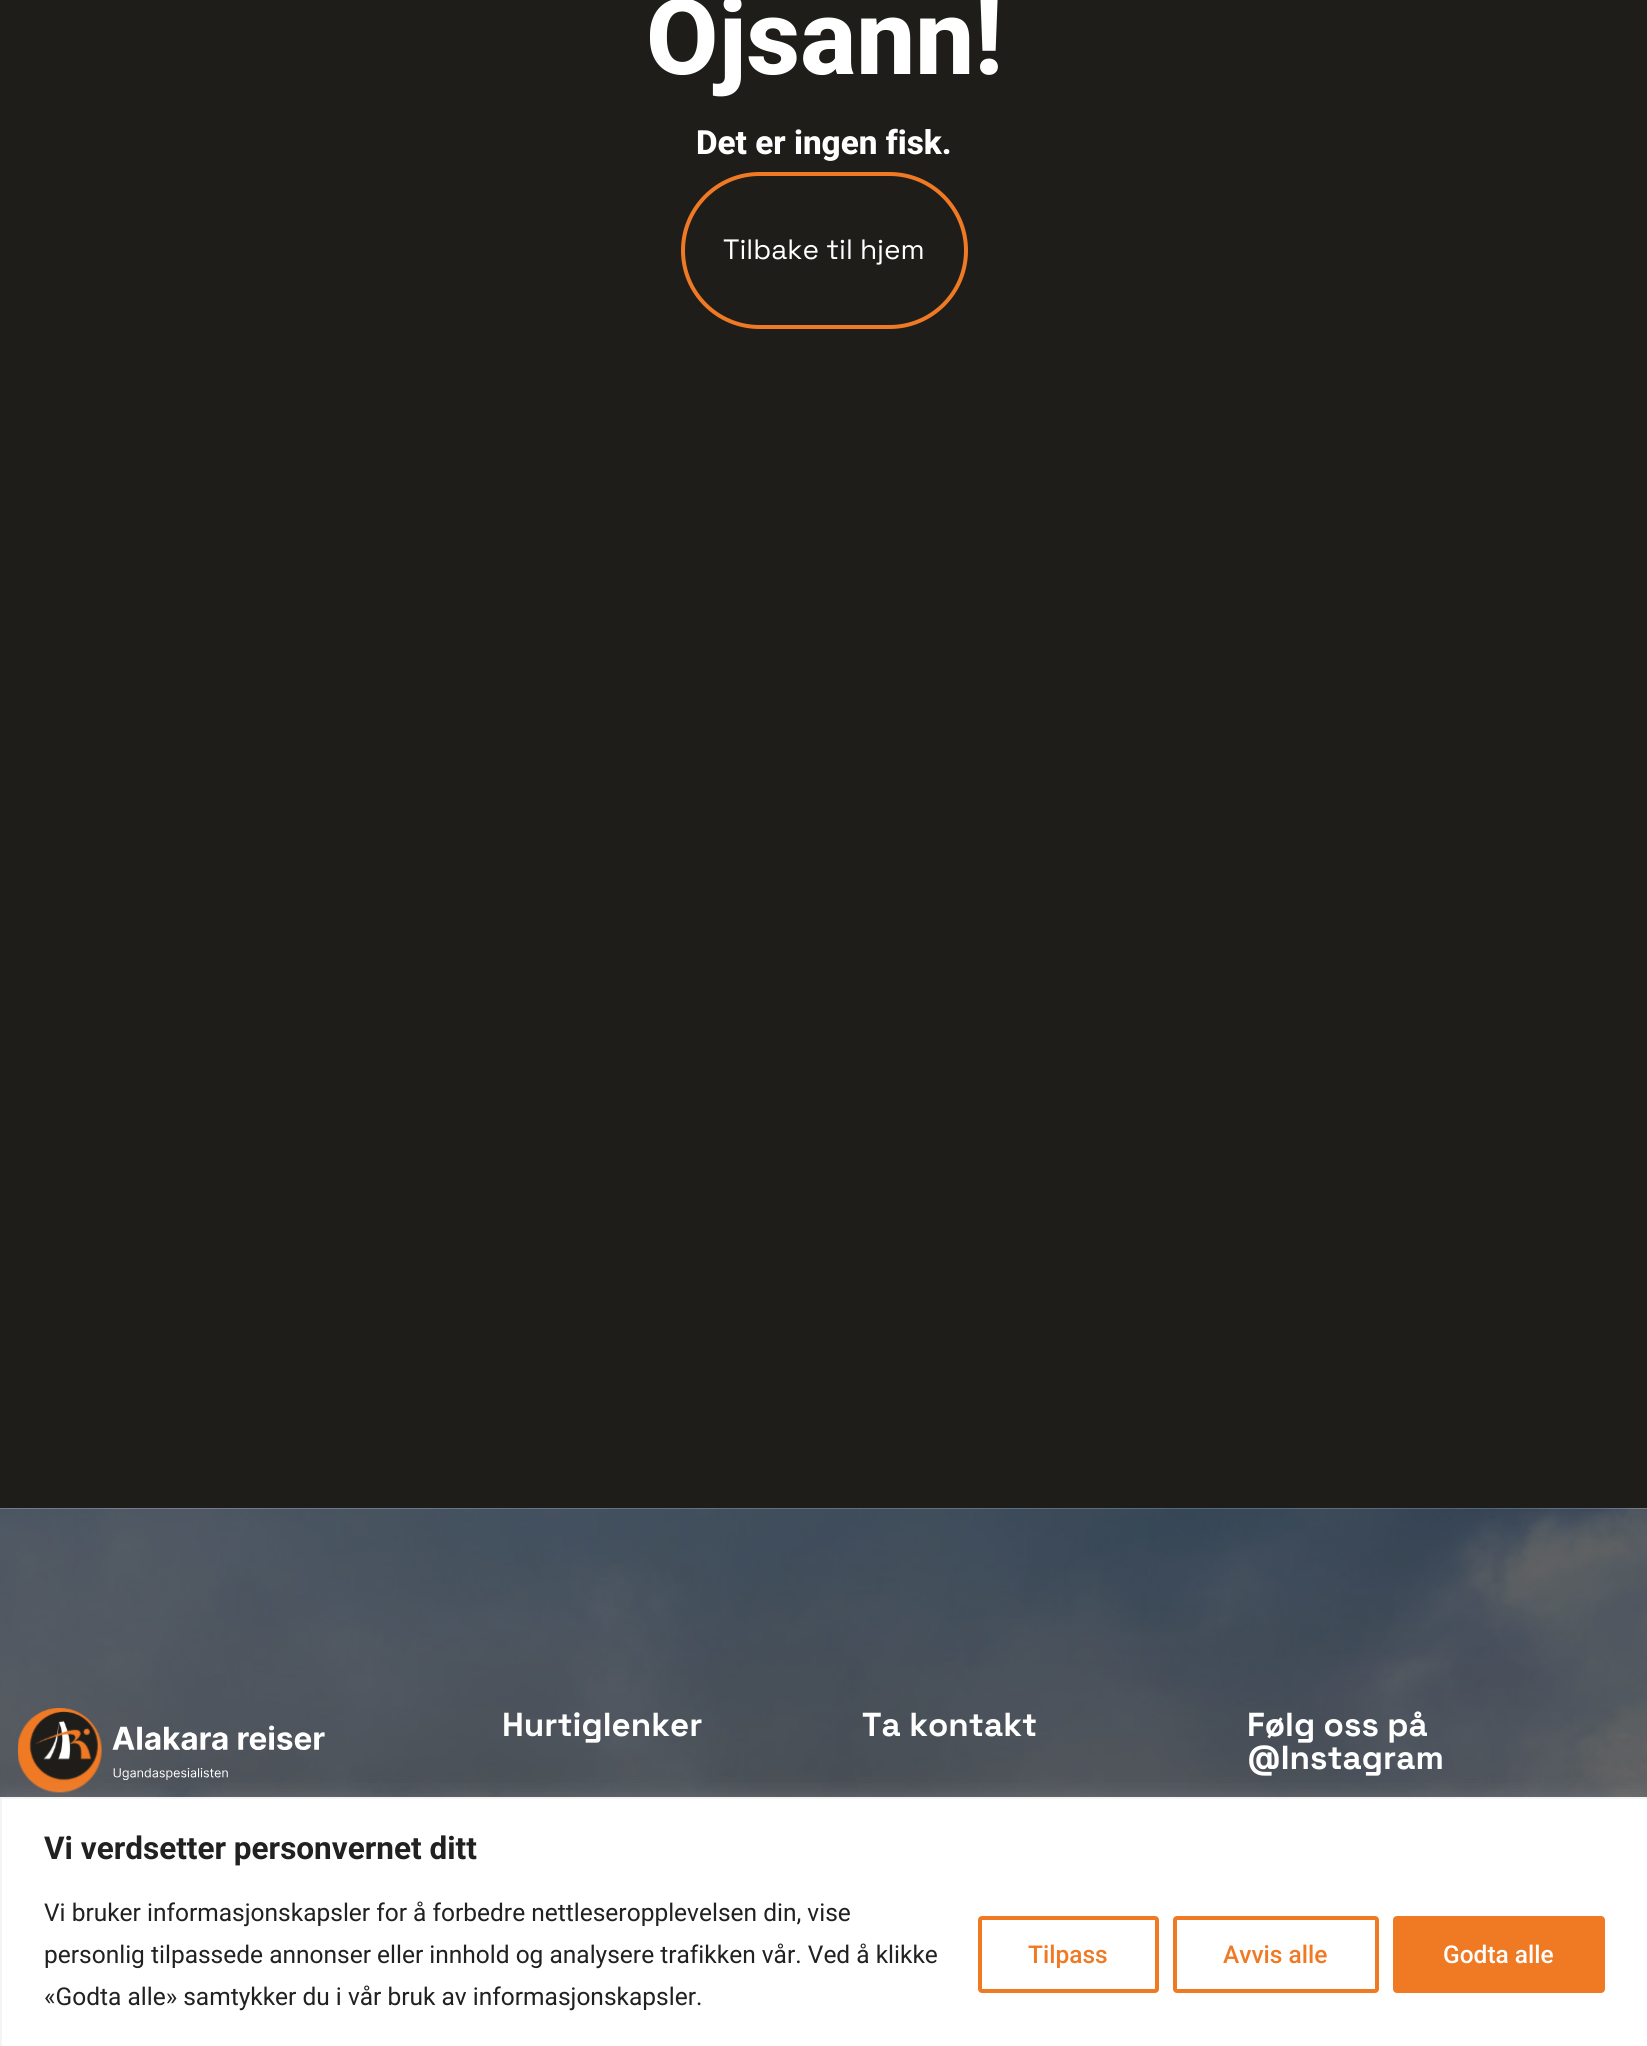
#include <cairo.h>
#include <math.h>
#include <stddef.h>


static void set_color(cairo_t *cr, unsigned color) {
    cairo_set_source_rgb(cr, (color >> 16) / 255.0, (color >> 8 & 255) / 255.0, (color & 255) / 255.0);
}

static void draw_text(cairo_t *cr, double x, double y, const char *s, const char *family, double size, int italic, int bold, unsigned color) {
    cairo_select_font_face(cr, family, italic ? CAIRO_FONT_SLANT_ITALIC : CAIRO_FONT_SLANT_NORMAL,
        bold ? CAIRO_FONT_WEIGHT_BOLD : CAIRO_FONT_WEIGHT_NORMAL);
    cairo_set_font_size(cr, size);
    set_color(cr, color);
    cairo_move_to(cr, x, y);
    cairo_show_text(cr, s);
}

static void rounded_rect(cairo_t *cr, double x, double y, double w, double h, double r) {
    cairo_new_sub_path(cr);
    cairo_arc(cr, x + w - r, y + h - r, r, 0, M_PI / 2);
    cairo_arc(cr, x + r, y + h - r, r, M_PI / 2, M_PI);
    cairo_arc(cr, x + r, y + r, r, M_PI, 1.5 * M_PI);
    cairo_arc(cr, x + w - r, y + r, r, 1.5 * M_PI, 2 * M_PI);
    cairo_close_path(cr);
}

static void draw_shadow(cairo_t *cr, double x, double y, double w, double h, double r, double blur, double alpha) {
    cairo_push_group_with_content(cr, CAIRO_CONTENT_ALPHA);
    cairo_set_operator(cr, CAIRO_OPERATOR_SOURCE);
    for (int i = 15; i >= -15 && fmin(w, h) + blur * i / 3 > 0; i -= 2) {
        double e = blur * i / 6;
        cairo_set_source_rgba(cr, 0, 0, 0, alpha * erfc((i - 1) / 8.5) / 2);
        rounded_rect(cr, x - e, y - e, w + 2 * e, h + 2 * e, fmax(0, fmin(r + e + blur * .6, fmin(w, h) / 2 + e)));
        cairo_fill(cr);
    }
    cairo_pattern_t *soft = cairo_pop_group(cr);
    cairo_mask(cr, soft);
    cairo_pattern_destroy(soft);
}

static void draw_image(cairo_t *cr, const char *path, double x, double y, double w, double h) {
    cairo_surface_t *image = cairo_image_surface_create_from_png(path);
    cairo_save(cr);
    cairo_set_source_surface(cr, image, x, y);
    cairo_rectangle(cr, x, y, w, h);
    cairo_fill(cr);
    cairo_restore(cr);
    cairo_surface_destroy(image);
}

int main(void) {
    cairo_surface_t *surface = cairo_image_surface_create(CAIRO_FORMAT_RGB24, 1647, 2046);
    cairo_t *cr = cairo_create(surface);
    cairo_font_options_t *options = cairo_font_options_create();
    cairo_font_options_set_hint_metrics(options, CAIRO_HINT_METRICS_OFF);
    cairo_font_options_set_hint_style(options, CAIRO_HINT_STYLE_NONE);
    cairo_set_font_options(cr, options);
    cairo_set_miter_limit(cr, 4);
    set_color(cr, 0x1E1D19);
    cairo_paint(cr);
    draw_text(cr, 646, 74, "Ojsann!", "Roboto ExtraBold", 105, 0, 0, 0xFFFFFF);
    draw_text(cr, 696, 154, "Det er ingen fisk.", "Roboto ExtraBold", 33.25, 0, 0, 0xFFFFFF);
    rounded_rect(cr, 683, 174, 283, 153, 76.5);
    set_color(cr, 0xF07924);
    cairo_set_line_width(cr, 4);
    cairo_stroke(cr);
    draw_text(cr, 723, 259, "Tilbake til hjem", "Space Grotesk", 28, 0, 0, 0xFFFFFF);
    draw_image(cr, "assets/img1.png", 0, 1508, 1647, 289);
    draw_image(cr, "assets/img2.png", 18, 1708, 307, 85);
    draw_text(cr, 502, 1736, "Hurtiglenker", "Space Grotesk", 33.25, 0, 1, 0xFFFFFF);
    draw_text(cr, 862, 1736, "Ta kontakt", "Space Grotesk", 33.25, 0, 1, 0xFFFFFF);
    draw_text(cr, 1247, 1736, "Følg oss på", "Space Grotesk", 33.25, 0, 1, 0xFFFFFF);
    draw_text(cr, 1247, 1769, "@Instagram", "Space Grotesk", 33.25, 0, 1, 0xFFFFFF);
    set_color(cr, 0xACABAB);
    draw_shadow(cr, 0, 1796, 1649, 250, 0, 9, 0.3);
    set_color(cr, 0xFFFFFF);
    cairo_rectangle(cr, 1, 1798, 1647, 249);
    cairo_fill_preserve(cr);
    set_color(cr, 0xF4F4F4);
    cairo_set_line_width(cr, 2);
    cairo_stroke(cr);
    draw_text(cr, 44, 1859, "Vi verdsetter personvernet ditt", "Roboto", 31.5, 0, 1, 0x212121);
    draw_text(cr, 44, 1921, "Vi bruker informasjonskapsler for å forbedre nettleseropplevelsen din, vise", "Roboto", 24.5, 0, 0, 0x212121);
    draw_text(cr, 44, 1963, "personlig tilpassede annonser eller innhold og analysere trafikken vår. Ved å klikke", "Roboto", 24.5, 0, 0, 0x212121);
    draw_text(cr, 44, 2005, "«Godta alle» samtykker du i vår bruk av informasjonskapsler.", "Roboto", 24.5, 0, 0, 0x212121);
    rounded_rect(cr, 980, 1918, 177, 73, 2);
    set_color(cr, 0xF07924);
    cairo_set_line_width(cr, 4);
    cairo_stroke(cr);
    draw_text(cr, 1028, 1963, "Tilpass", "Roboto Medium", 24.5, 0, 0, 0xF07924);
    rounded_rect(cr, 1175, 1918, 202, 73, 2);
    cairo_stroke(cr);
    draw_text(cr, 1223, 1963, "Avvis alle", "Roboto Medium", 24.5, 0, 0, 0xF07924);
    rounded_rect(cr, 1395, 1918, 208, 73, 2);
    cairo_fill_preserve(cr);
    cairo_stroke(cr);
    draw_text(cr, 1443, 1963, "Godta alle", "Roboto Medium", 24.5, 0, 0, 0xFFFFFF);
    cairo_surface_write_to_png(surface, "output.png");
    cairo_font_options_destroy(options);
    cairo_destroy(cr);
    cairo_surface_destroy(surface);
    return 0;
}
